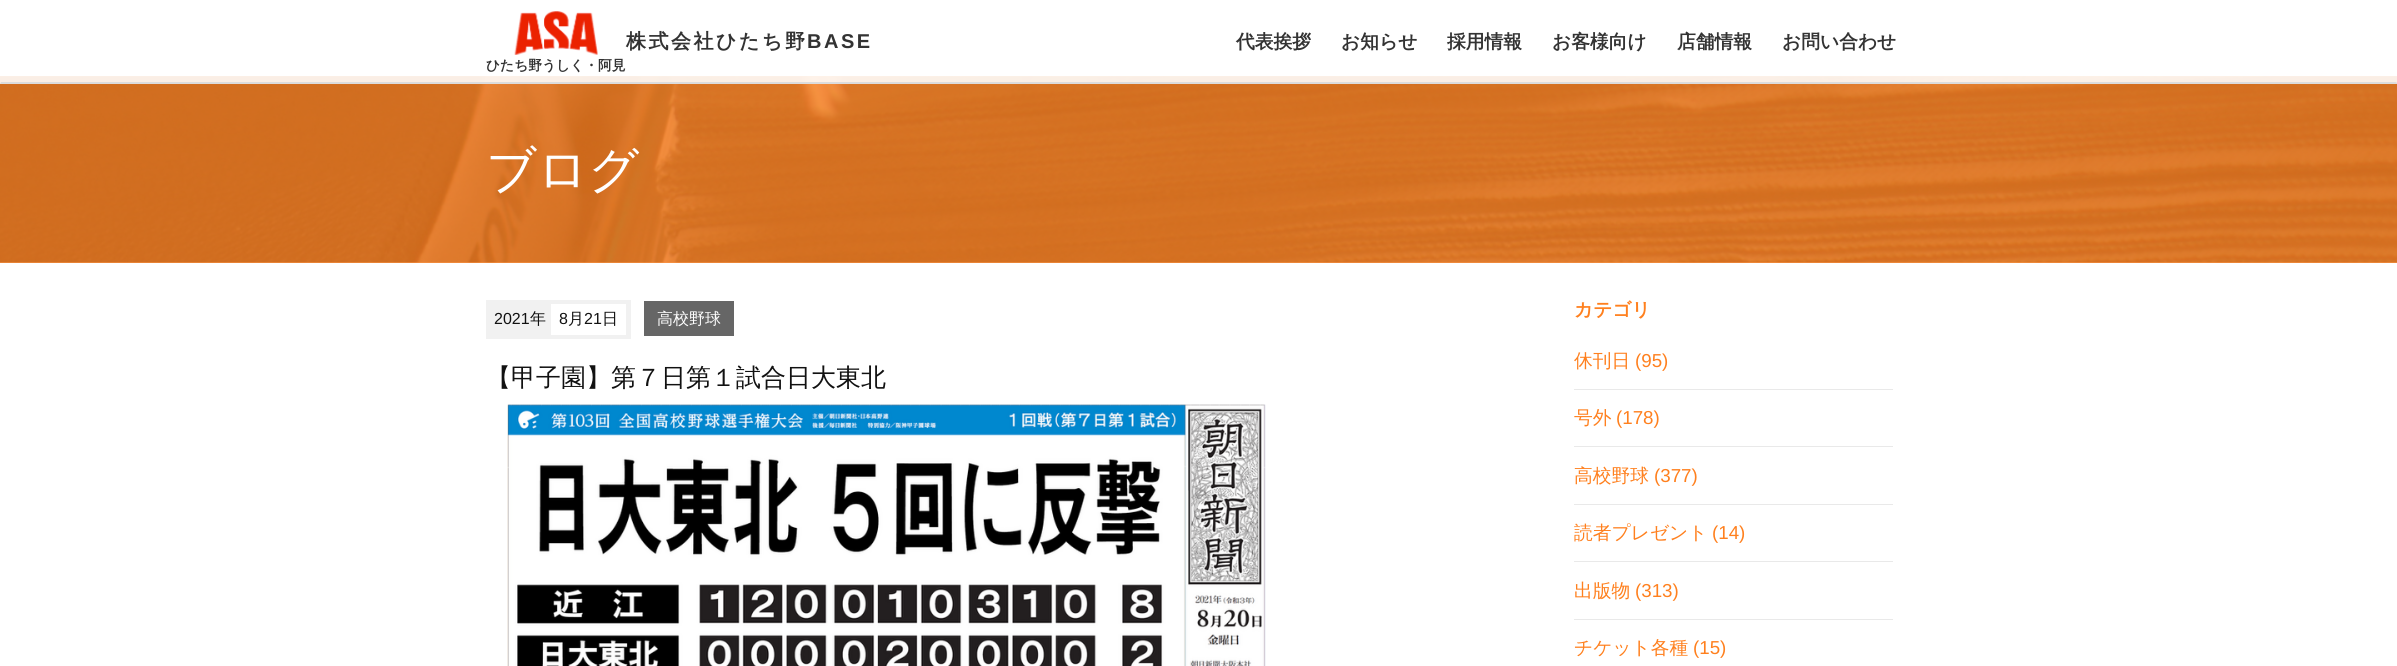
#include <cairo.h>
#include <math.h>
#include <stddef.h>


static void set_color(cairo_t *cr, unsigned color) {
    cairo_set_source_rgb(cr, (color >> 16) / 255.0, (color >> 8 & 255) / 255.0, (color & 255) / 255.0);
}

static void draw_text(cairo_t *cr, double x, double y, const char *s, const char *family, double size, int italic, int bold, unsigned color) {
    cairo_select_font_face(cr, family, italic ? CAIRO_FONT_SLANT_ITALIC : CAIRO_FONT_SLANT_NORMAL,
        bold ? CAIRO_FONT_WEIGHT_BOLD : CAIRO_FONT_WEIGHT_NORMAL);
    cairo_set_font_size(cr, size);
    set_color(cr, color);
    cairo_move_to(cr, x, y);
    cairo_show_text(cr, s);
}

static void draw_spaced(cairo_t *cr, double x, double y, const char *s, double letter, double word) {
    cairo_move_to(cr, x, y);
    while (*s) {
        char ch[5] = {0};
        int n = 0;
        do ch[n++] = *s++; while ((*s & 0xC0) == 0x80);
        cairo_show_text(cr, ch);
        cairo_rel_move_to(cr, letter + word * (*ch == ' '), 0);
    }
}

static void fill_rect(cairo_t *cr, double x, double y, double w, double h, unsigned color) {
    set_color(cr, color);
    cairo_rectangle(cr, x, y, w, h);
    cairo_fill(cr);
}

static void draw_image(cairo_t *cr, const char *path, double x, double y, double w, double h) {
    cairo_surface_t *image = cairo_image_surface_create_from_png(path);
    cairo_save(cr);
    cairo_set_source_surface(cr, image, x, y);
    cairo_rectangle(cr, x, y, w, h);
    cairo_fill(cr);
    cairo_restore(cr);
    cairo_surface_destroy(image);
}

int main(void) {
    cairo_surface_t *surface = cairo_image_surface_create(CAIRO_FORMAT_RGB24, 2397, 666);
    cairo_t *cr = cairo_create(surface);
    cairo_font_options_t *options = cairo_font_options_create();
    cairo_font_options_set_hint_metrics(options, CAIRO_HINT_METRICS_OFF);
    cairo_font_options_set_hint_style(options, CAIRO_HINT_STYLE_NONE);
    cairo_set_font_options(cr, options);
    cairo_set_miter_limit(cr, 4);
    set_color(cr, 0xFFFFFF);
    cairo_paint(cr);
    fill_rect(cr, 0, 76, 2397, 187, 0xFF994B);
    draw_image(cr, "assets/img2.png", 0, 76, 2397, 187);
    cairo_set_source_rgba(cr, 1, 1, 1, 0.88);
    cairo_rectangle(cr, 0, 76, 2397, 8);
    cairo_fill(cr);
    set_color(cr, 0xDCDCDC);
    cairo_new_path(cr);
    cairo_move_to(cr, 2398, 84);
    cairo_line_to(cr, 0, 84);
    cairo_line_to(cr, 1, 82);
    cairo_line_to(cr, 2396, 82);
    cairo_close_path(cr);
    cairo_fill(cr);
    cairo_select_font_face(cr, "WenQuanYi Zen Hei", CAIRO_FONT_SLANT_NORMAL, CAIRO_FONT_WEIGHT_BOLD);
    cairo_set_font_size(cr, 20);
    set_color(cr, 0x333333);
    draw_spaced(cr, 626, 48, "株式会社ひたち野", 2.5, 0);
    cairo_select_font_face(cr, "Liberation Sans", CAIRO_FONT_SLANT_NORMAL, CAIRO_FONT_WEIGHT_BOLD);
    draw_spaced(cr, 807, 48, "BASE", 2.5, 0);
    draw_image(cr, "assets/img1.png", 514, 11, 84, 44);
    draw_text(cr, 486, 70, "ひたち野うしく・阿見", "WenQuanYi Zen Hei", 13.75, 0, 1, 0x333333);
    draw_text(cr, 1236, 48, "代表挨拶", "WenQuanYi Zen Hei", 18.75, 0, 1, 0x333333);
    draw_text(cr, 1341, 48, "お知らせ", "WenQuanYi Zen Hei", 18.75, 0, 1, 0x333333);
    draw_text(cr, 1447, 48, "採用情報", "WenQuanYi Zen Hei", 18.75, 0, 1, 0x333333);
    draw_text(cr, 1552, 48, "お客様向け", "WenQuanYi Zen Hei", 18.75, 0, 1, 0x333333);
    draw_text(cr, 1677, 48, "店舗情報", "WenQuanYi Zen Hei", 18.75, 0, 1, 0x333333);
    draw_text(cr, 1782, 48, "お問い合わせ", "WenQuanYi Zen Hei", 18.75, 0, 1, 0x333333);
    draw_text(cr, 486, 187, "ブログ", "WenQuanYi Zen Hei Medium", 50, 0, 0, 0xFFFFFF);
    fill_rect(cr, 486, 300, 145, 39, 0xF1F1F1);
    draw_text(cr, 494, 324, "2021", "Liberation Sans", 16, 0, 0, 0x111111);
    draw_text(cr, 530, 324, "年", "WenQuanYi Zen Hei Medium", 16, 0, 0, 0x111111);
    fill_rect(cr, 551, 304, 75, 31, 0xFFFFFF);
    draw_text(cr, 559, 324, "8", "Liberation Sans", 16, 0, 0, 0x111111);
    draw_text(cr, 568, 324, "月", "WenQuanYi Zen Hei Medium", 16, 0, 0, 0x111111);
    draw_text(cr, 584, 324, "21", "Liberation Sans", 16, 0, 0, 0x111111);
    draw_text(cr, 602, 324, "日", "WenQuanYi Zen Hei Medium", 16, 0, 0, 0x111111);
    fill_rect(cr, 644, 301, 90, 35, 0x666666);
    draw_text(cr, 657, 324, "高校野球", "WenQuanYi Zen Hei Medium", 16, 0, 0, 0xFFFFFF);
    draw_text(cr, 486, 386, "【甲子園】第７日第１試合日大東北", "WenQuanYi Zen Hei Medium", 25, 0, 0, 0x111111);
    draw_image(cr, "assets/img3.png", 507, 404, 759, 262);
    draw_text(cr, 1574, 316, "カテゴリ", "WenQuanYi Zen Hei", 18.75, 0, 1, 0xFF801E);
    fill_rect(cr, 1574, 389, 319, 1, 0xE9E9E9);
    draw_text(cr, 1574, 367, "休刊日", "WenQuanYi Zen Hei Medium", 18.75, 0, 0, 0xFF801E);
    draw_text(cr, 1635, 367, "(95)", "Liberation Sans", 18.75, 0, 0, 0xFF801E);
    fill_rect(cr, 1574, 446, 319, 1, 0xE9E9E9);
    draw_text(cr, 1574, 424, "号外", "WenQuanYi Zen Hei Medium", 18.75, 0, 0, 0xFF801E);
    draw_text(cr, 1616, 424, "(178)", "Liberation Sans", 18.75, 0, 0, 0xFF801E);
    fill_rect(cr, 1574, 504, 319, 1, 0xE9E9E9);
    draw_text(cr, 1574, 482, "高校野球", "WenQuanYi Zen Hei Medium", 18.75, 0, 0, 0xFF801E);
    draw_text(cr, 1654, 482, "(377)", "Liberation Sans", 18.75, 0, 0, 0xFF801E);
    fill_rect(cr, 1574, 561, 319, 1, 0xE9E9E9);
    draw_text(cr, 1574, 539, "読者プレゼント", "WenQuanYi Zen Hei Medium", 18.75, 0, 0, 0xFF801E);
    draw_text(cr, 1712, 539, "(14)", "Liberation Sans", 18.75, 0, 0, 0xFF801E);
    fill_rect(cr, 1574, 619, 319, 1, 0xE9E9E9);
    draw_text(cr, 1574, 597, "出版物", "WenQuanYi Zen Hei Medium", 18.75, 0, 0, 0xFF801E);
    draw_text(cr, 1635, 597, "(313)", "Liberation Sans", 18.75, 0, 0, 0xFF801E);
    draw_text(cr, 1574, 654, "チケット各種", "WenQuanYi Zen Hei Medium", 18.75, 0, 0, 0xFF801E);
    draw_text(cr, 1693, 654, "(15)", "Liberation Sans", 18.75, 0, 0, 0xFF801E);
    cairo_surface_write_to_png(surface, "output.png");
    cairo_font_options_destroy(options);
    cairo_destroy(cr);
    cairo_surface_destroy(surface);
    return 0;
}
